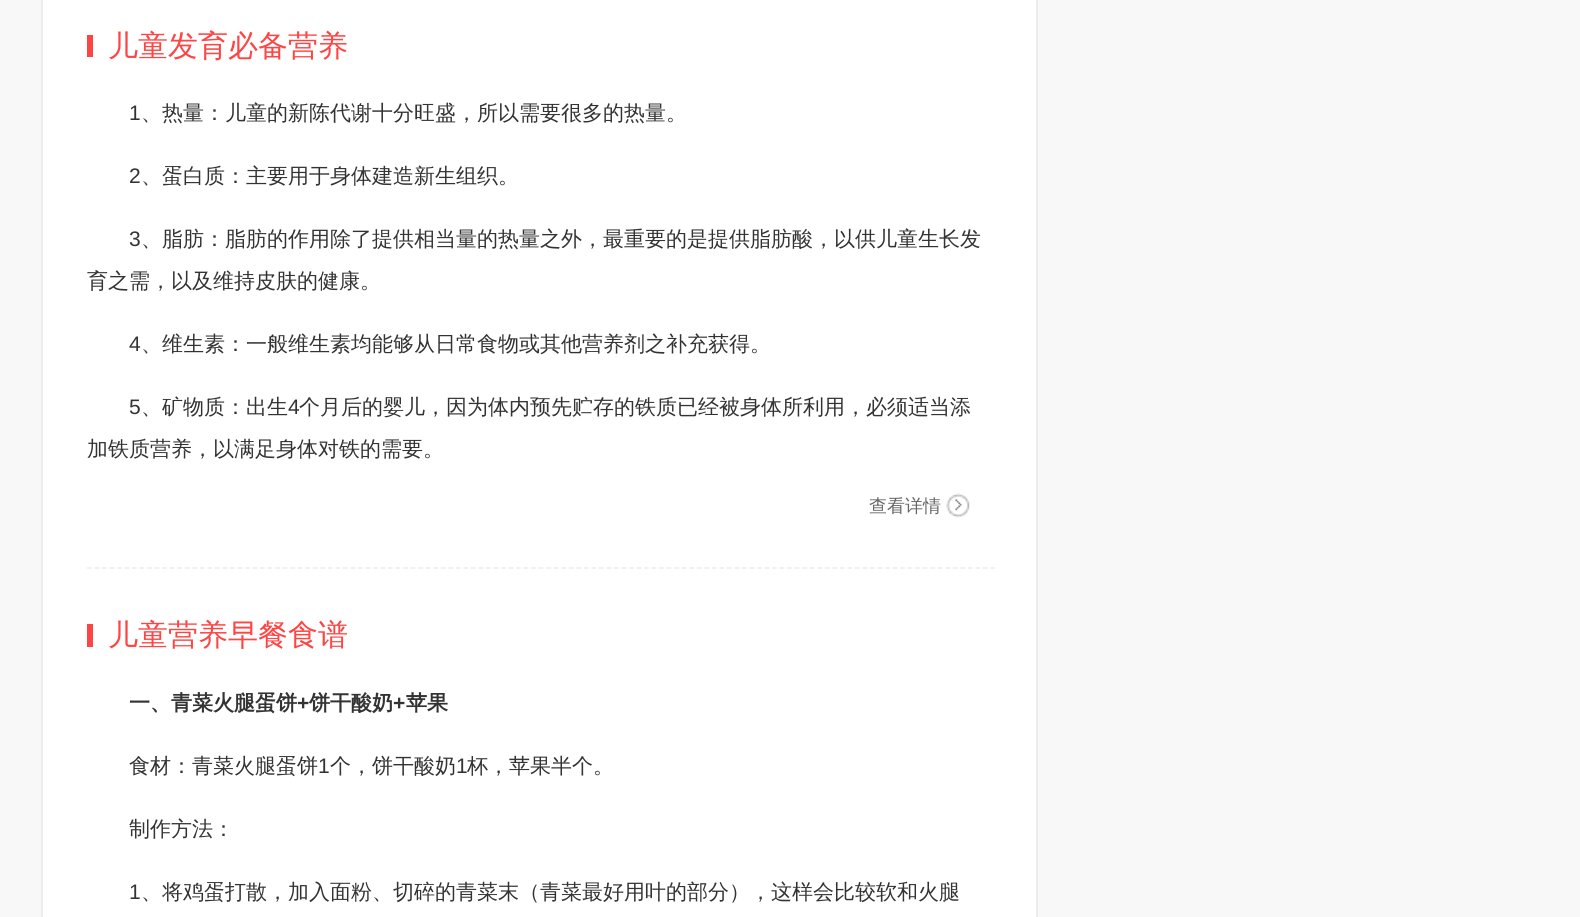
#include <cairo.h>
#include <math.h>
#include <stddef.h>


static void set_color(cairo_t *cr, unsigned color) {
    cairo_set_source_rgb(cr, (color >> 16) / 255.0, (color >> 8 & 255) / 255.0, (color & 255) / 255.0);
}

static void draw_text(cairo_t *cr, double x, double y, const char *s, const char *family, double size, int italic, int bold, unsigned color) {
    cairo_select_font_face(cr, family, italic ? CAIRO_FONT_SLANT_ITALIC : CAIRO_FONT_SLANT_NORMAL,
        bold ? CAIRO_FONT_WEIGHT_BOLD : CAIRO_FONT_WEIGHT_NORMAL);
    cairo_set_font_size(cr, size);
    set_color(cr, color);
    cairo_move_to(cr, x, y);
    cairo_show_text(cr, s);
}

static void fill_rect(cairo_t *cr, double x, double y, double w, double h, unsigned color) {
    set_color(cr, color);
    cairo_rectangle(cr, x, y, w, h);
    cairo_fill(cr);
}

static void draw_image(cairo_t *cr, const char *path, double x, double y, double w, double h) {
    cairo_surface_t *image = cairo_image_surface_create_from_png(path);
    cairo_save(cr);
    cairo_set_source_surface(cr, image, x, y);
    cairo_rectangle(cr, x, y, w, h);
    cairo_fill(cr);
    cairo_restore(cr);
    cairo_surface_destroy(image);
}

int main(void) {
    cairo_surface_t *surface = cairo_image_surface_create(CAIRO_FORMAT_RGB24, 1580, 917);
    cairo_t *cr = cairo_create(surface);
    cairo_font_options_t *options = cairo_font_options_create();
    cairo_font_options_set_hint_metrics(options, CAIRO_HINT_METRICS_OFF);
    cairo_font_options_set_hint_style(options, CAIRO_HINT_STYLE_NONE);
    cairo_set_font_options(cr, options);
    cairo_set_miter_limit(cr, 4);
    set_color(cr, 0xF8F8F8);
    cairo_paint(cr);
    set_color(cr, 0xFFFFFF);
    cairo_rectangle(cr, 42, -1, 995, 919);
    cairo_fill_preserve(cr);
    set_color(cr, 0xECECEC);
    cairo_stroke(cr);
    fill_rect(cr, 87, 35, 6, 22, 0xFF4444);
    draw_text(cr, 108, 56, "儿童发育必备营养", "WenQuanYi Zen Hei Medium", 30, 0, 0, 0xFF4444);
    draw_text(cr, 129, 120, "1", "Liberation Sans", 21, 0, 0, 0x333333);
    draw_text(cr, 141, 120, "、热量：儿童的新陈代谢十分旺盛，所以需要很多的热量。", "WenQuanYi Zen Hei Medium", 21, 0, 0, 0x333333);
    draw_text(cr, 129, 183, "2", "Liberation Sans", 21, 0, 0, 0x333333);
    draw_text(cr, 141, 183, "、蛋白质：主要用于身体建造新生组织。", "WenQuanYi Zen Hei Medium", 21, 0, 0, 0x333333);
    draw_text(cr, 129, 246, "3", "Liberation Sans", 21, 0, 0, 0x333333);
    draw_text(cr, 141, 246, "、脂肪：脂肪的作用除了提供相当量的热量之外，最重要的是提供脂肪酸，以供儿童生长发", "WenQuanYi Zen Hei Medium", 21, 0, 0, 0x333333);
    draw_text(cr, 87, 288, "育之需，以及维持皮肤的健康。", "WenQuanYi Zen Hei Medium", 21, 0, 0, 0x333333);
    draw_text(cr, 129, 351, "4", "Liberation Sans", 21, 0, 0, 0x333333);
    draw_text(cr, 141, 351, "、维生素：一般维生素均能够从日常食物或其他营养剂之补充获得。", "WenQuanYi Zen Hei Medium", 21, 0, 0, 0x333333);
    draw_text(cr, 129, 414, "5", "Liberation Sans", 21, 0, 0, 0x333333);
    draw_text(cr, 141, 414, "、矿物质：出生", "WenQuanYi Zen Hei Medium", 21, 0, 0, 0x333333);
    draw_text(cr, 288, 414, "4", "Liberation Sans", 21, 0, 0, 0x333333);
    draw_text(cr, 299, 414, "个月后的婴儿，因为体内预先贮存的铁质已经被身体所利用，必须适当添", "WenQuanYi Zen Hei Medium", 21, 0, 0, 0x333333);
    draw_text(cr, 87, 456, "加铁质营养，以满足身体对铁的需要。", "WenQuanYi Zen Hei Medium", 21, 0, 0, 0x333333);
    draw_image(cr, "assets/img1.png", 946, 493, 24, 25);
    draw_text(cr, 869, 512, "查看详情", "WenQuanYi Zen Hei Medium", 18, 0, 0, 0x666666);
    cairo_new_path(cr);
    cairo_move_to(cr, 87, 568);
    cairo_line_to(cr, 994.5, 568);
    set_color(cr, 0xECECEC);
    cairo_set_line_width(cr, 1.5);
    cairo_set_dash(cr, (double[]){4.5, 3.03}, 2, 0);
    cairo_stroke(cr);
    fill_rect(cr, 87, 624, 6, 23, 0xFF4444);
    draw_text(cr, 108, 645, "儿童营养早餐食谱", "WenQuanYi Zen Hei Medium", 30, 0, 0, 0xFF4444);
    draw_text(cr, 129, 710, "一、青菜火腿蛋饼", "WenQuanYi Zen Hei", 21, 0, 1, 0x333333);
    draw_text(cr, 297, 710, "+", "Liberation Sans", 21, 0, 1, 0x333333);
    draw_text(cr, 309, 710, "饼干酸奶", "WenQuanYi Zen Hei", 21, 0, 1, 0x333333);
    draw_text(cr, 393, 710, "+", "Liberation Sans", 21, 0, 1, 0x333333);
    draw_text(cr, 406, 710, "苹果", "WenQuanYi Zen Hei", 21, 0, 1, 0x333333);
    draw_text(cr, 129, 773, "食材：青菜火腿蛋饼", "WenQuanYi Zen Hei Medium", 21, 0, 0, 0x333333);
    draw_text(cr, 318, 773, "1", "Liberation Sans", 21, 0, 0, 0x333333);
    draw_text(cr, 330, 773, "个，饼干酸奶", "WenQuanYi Zen Hei Medium", 21, 0, 0, 0x333333);
    draw_text(cr, 456, 773, "1", "Liberation Sans", 21, 0, 0, 0x333333);
    draw_text(cr, 467, 773, "杯，苹果半个。", "WenQuanYi Zen Hei Medium", 21, 0, 0, 0x333333);
    draw_text(cr, 129, 836, "制作方法：", "WenQuanYi Zen Hei Medium", 21, 0, 0, 0x333333);
    draw_text(cr, 129, 899, "1", "Liberation Sans", 21, 0, 0, 0x333333);
    draw_text(cr, 141, 899, "、将鸡蛋打散，加入面粉、切碎的青菜末（青菜最好用叶的部分），这样会比较软和火腿", "WenQuanYi Zen Hei Medium", 21, 0, 0, 0x333333);
    cairo_surface_write_to_png(surface, "output.png");
    cairo_font_options_destroy(options);
    cairo_destroy(cr);
    cairo_surface_destroy(surface);
    return 0;
}
